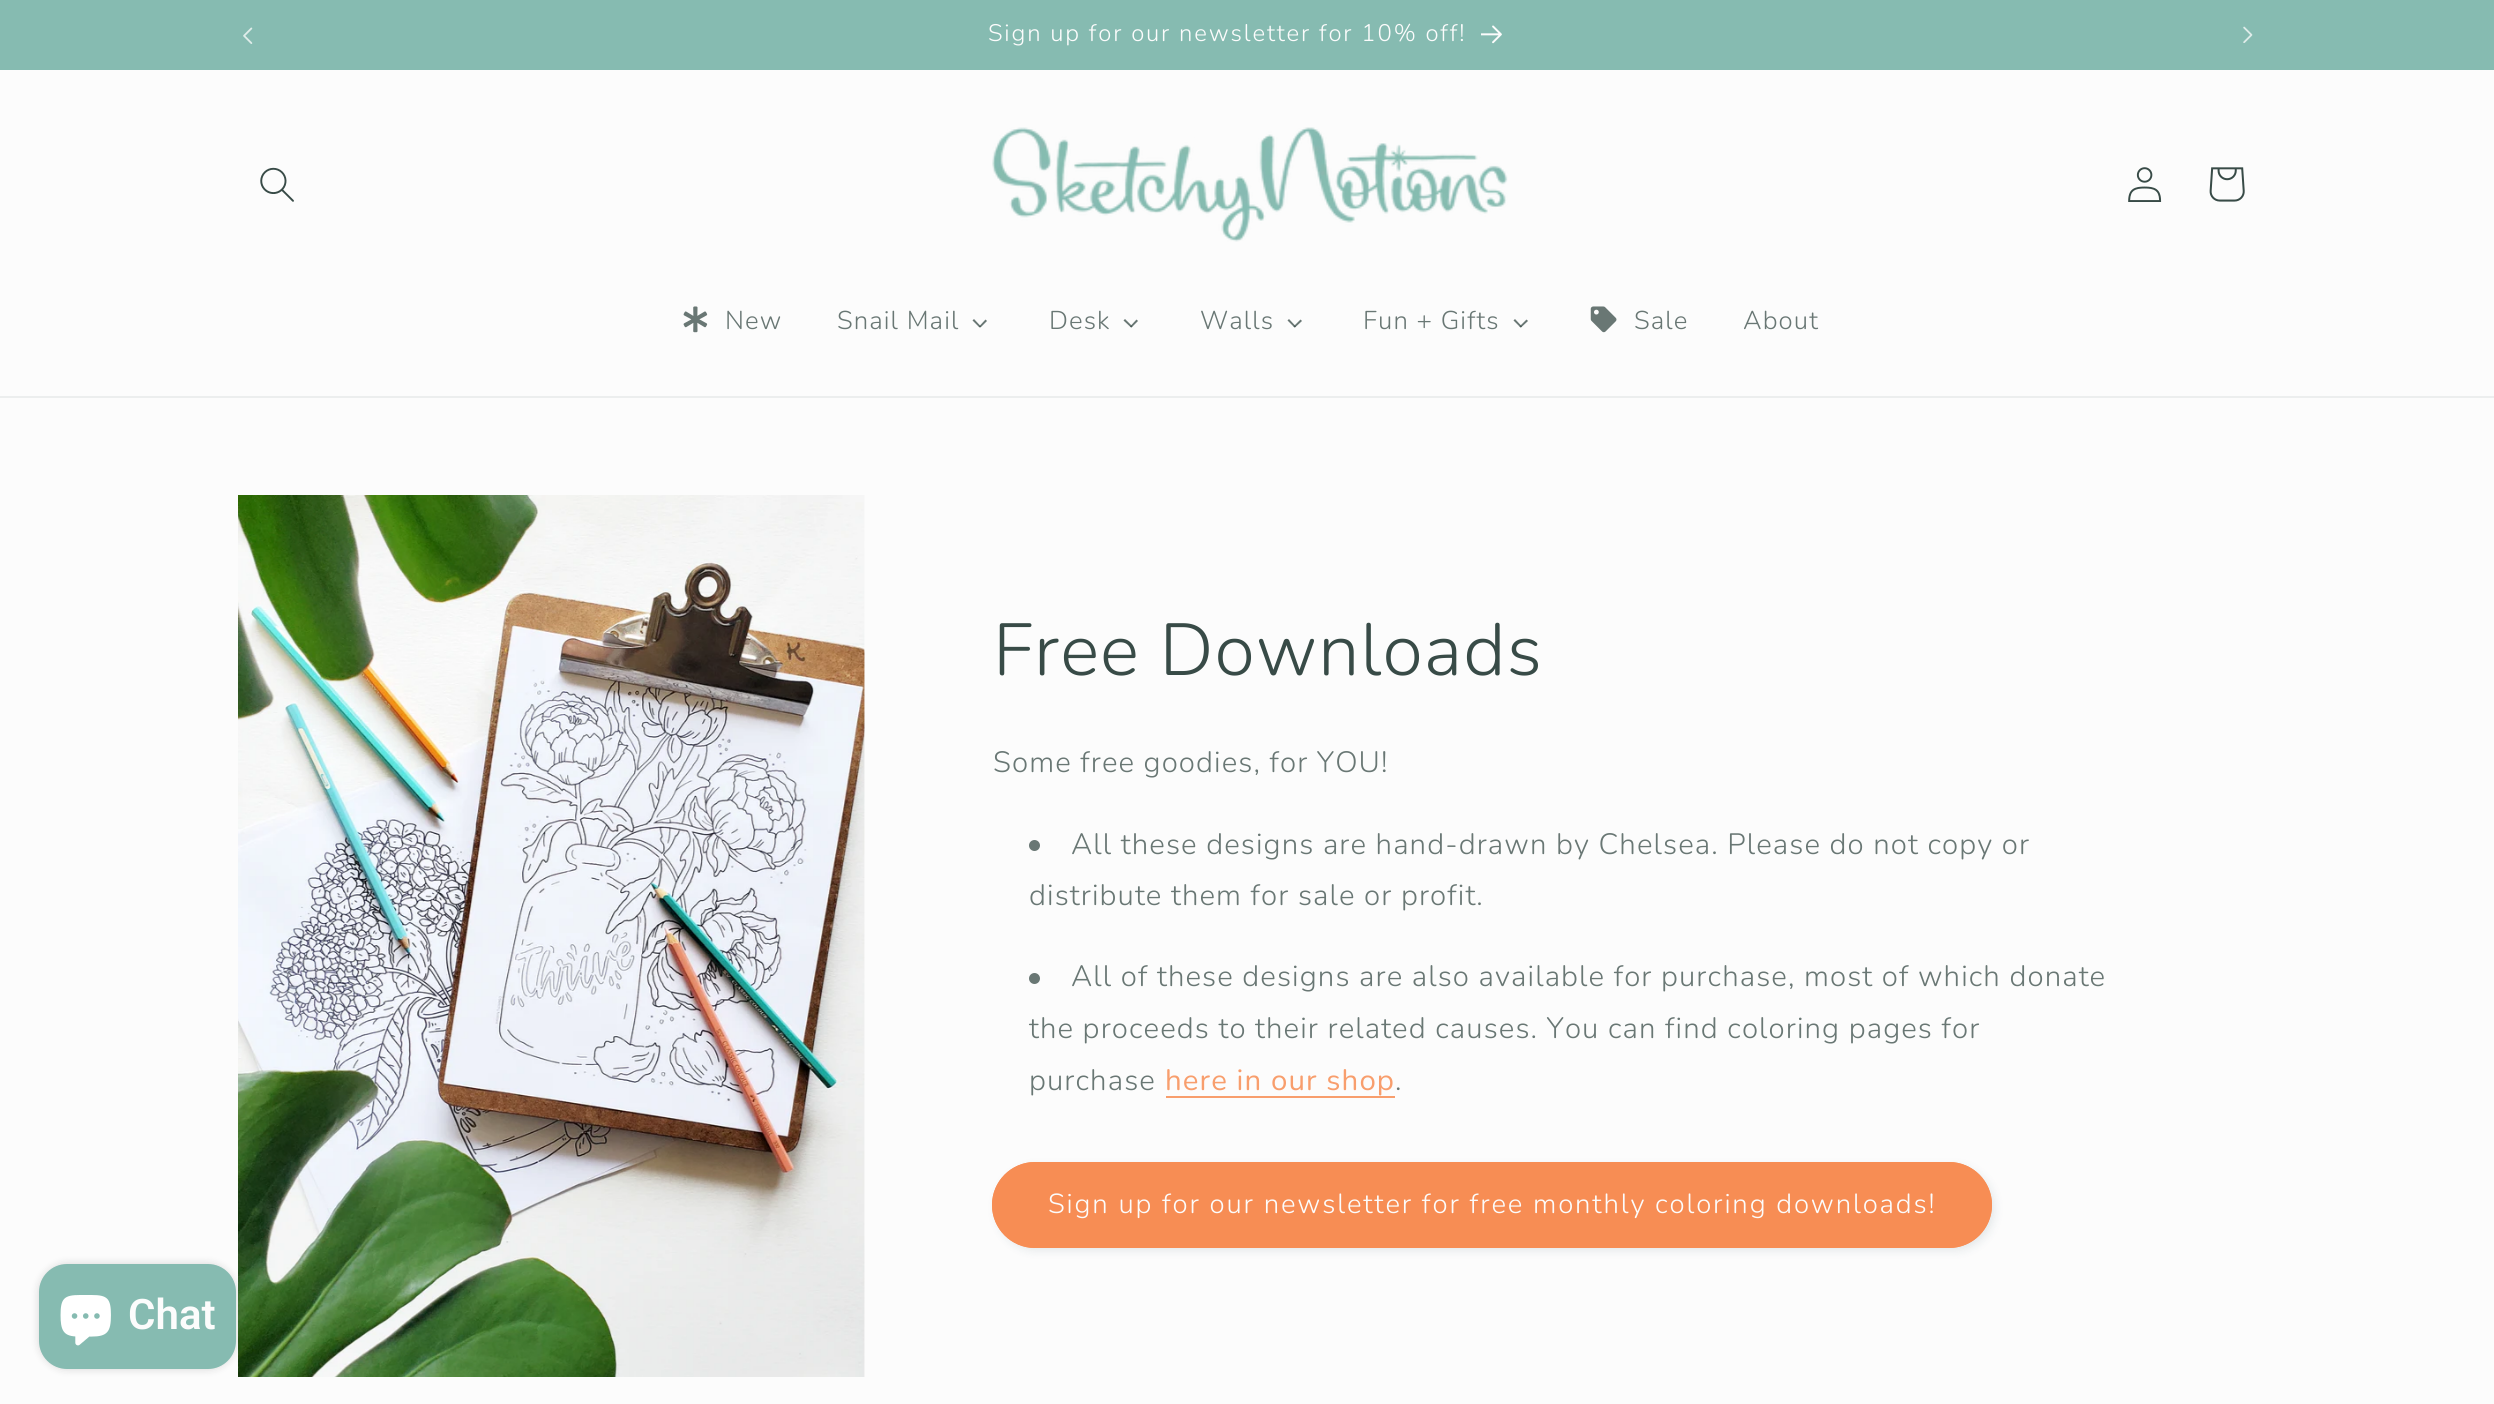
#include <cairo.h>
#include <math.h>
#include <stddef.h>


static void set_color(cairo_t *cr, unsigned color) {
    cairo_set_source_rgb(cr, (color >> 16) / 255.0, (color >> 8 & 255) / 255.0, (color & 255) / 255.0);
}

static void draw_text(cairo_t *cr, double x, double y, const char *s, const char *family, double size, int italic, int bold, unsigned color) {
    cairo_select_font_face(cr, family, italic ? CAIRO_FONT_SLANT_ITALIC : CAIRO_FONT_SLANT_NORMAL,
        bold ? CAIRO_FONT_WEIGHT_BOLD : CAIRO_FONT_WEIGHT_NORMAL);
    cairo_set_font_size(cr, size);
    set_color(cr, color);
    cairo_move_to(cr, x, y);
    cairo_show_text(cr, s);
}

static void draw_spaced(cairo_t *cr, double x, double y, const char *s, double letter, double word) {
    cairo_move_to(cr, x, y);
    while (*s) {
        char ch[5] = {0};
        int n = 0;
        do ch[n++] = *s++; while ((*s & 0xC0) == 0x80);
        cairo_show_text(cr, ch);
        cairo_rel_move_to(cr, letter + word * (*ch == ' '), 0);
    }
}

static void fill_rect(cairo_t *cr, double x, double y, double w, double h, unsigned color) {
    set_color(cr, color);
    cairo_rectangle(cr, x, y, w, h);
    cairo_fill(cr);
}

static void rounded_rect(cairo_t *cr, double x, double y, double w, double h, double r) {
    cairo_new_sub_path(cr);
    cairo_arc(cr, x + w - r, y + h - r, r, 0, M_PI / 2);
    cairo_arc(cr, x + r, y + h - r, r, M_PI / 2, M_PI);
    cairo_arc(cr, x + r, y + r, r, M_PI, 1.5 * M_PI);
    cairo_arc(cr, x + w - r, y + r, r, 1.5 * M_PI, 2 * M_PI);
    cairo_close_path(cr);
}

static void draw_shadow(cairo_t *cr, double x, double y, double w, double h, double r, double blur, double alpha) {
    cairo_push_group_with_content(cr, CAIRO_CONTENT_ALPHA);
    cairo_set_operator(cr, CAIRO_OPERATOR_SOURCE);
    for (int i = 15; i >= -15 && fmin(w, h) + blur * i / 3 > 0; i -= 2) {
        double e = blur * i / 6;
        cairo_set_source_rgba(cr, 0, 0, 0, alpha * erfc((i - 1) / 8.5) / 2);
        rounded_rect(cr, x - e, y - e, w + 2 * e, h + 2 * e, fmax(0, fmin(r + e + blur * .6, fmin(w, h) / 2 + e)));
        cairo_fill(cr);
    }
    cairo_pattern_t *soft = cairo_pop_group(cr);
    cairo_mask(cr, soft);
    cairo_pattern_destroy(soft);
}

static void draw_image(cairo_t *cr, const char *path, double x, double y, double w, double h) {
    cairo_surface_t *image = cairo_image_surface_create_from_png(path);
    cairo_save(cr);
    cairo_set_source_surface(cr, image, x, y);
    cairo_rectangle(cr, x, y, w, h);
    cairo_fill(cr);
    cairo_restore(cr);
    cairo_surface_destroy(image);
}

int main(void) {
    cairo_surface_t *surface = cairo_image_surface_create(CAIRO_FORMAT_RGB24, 2494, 1404);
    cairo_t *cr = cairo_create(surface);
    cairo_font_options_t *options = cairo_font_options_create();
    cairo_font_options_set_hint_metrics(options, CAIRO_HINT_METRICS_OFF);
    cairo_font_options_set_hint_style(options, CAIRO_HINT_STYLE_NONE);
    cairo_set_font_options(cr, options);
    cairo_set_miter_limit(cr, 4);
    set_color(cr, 0xFCFCFC);
    cairo_paint(cr);
    fill_rect(cr, 0, 0, 2494, 70, 0x86BBB1);
    draw_image(cr, "assets/img1.png", 243, 27, 10, 17);
    cairo_select_font_face(cr, "Nunito Light", CAIRO_FONT_SLANT_NORMAL, CAIRO_FONT_WEIGHT_NORMAL);
    cairo_set_font_size(cr, 23.9);
    set_color(cr, 0xFCFCFC);
    draw_spaced(cr, 988, 41, "Sign up for our newsletter for 10% off!", 1.85, 0);
    draw_image(cr, "assets/img2.png", 1481, 25, 21, 19);
    draw_image(cr, "assets/img3.png", 2243, 26, 10, 17);
    fill_rect(cr, 0, 396, 2494, 2, 0xECEEEE);
    draw_image(cr, "assets/img4.png", 260, 167, 34, 35);
    draw_image(cr, "assets/img5.png", 992, 127, 516, 115);
    draw_image(cr, "assets/img6.png", 2128, 167, 34, 35);
    draw_image(cr, "assets/img7.png", 2209, 167, 36, 35);
    draw_image(cr, "assets/img8.png", 683, 306, 25, 27);
    cairo_set_font_size(cr, 25.75);
    set_color(cr, 0x697774);
    draw_spaced(cr, 725, 329, "New", 1.1, 0);
    draw_spaced(cr, 837, 329, "Snail Mail", 1.1, 0);
    cairo_new_path(cr);
    cairo_move_to(cr, 985.5, 319.5);
    cairo_line_to(cr, 987, 321);
    cairo_line_to(cr, 980.5, 327.5);
    cairo_line_to(cr, 979, 326.5);
    cairo_close_path(cr);
    cairo_fill(cr);
    cairo_set_source_rgba(cr, 0.22, 0.294, 0.278, 0.75);
    cairo_new_path(cr);
    cairo_move_to(cr, 974, 319);
    cairo_line_to(cr, 981, 326.5);
    cairo_line_to(cr, 979.5, 327.5);
    cairo_line_to(cr, 972.5, 320.5);
    cairo_close_path(cr);
    cairo_fill(cr);
    set_color(cr, 0x697774);
    draw_spaced(cr, 1049, 329, "Desk", 1.1, 0);
    cairo_new_path(cr);
    cairo_move_to(cr, 1136.5, 319.5);
    cairo_line_to(cr, 1138, 321);
    cairo_line_to(cr, 1131.5, 327.5);
    cairo_line_to(cr, 1130, 326.5);
    cairo_close_path(cr);
    cairo_fill(cr);
    cairo_set_source_rgba(cr, 0.22, 0.294, 0.278, 0.75);
    cairo_new_path(cr);
    cairo_move_to(cr, 1125, 319);
    cairo_line_to(cr, 1132.5, 326.5);
    cairo_line_to(cr, 1131, 327.5);
    cairo_line_to(cr, 1123.5, 320.5);
    cairo_close_path(cr);
    cairo_fill(cr);
    set_color(cr, 0x697774);
    draw_spaced(cr, 1200, 329, "Walls", 1.1, 0);
    cairo_new_path(cr);
    cairo_move_to(cr, 1300.5, 319.5);
    cairo_line_to(cr, 1302, 321);
    cairo_line_to(cr, 1295, 327.5);
    cairo_line_to(cr, 1293.5, 326.5);
    cairo_close_path(cr);
    cairo_fill(cr);
    cairo_set_source_rgba(cr, 0.22, 0.294, 0.278, 0.75);
    cairo_new_path(cr);
    cairo_move_to(cr, 1289, 319);
    cairo_line_to(cr, 1296, 326.5);
    cairo_line_to(cr, 1294.5, 327.5);
    cairo_line_to(cr, 1287.5, 320.5);
    cairo_close_path(cr);
    cairo_fill(cr);
    set_color(cr, 0x697774);
    draw_spaced(cr, 1363, 329, "Fun + Gifts", 1.1, 0);
    cairo_new_path(cr);
    cairo_move_to(cr, 1526.5, 319.5);
    cairo_line_to(cr, 1528, 321);
    cairo_line_to(cr, 1521, 327.5);
    cairo_line_to(cr, 1519.5, 326.5);
    cairo_close_path(cr);
    cairo_fill(cr);
    cairo_set_source_rgba(cr, 0.22, 0.294, 0.278, 0.75);
    cairo_new_path(cr);
    cairo_move_to(cr, 1515, 319);
    cairo_line_to(cr, 1522, 326.5);
    cairo_line_to(cr, 1520.5, 327.5);
    cairo_line_to(cr, 1513.5, 320.5);
    cairo_close_path(cr);
    cairo_fill(cr);
    draw_image(cr, "assets/img9.png", 1590, 306, 27, 27);
    set_color(cr, 0x697774);
    draw_spaced(cr, 1634, 329, "Sale", 1.1, 0);
    draw_spaced(cr, 1743, 329, "About", 1.1, 0);
    draw_image(cr, "assets/img10.png", 238, 495, 627, 882);
    cairo_set_font_size(cr, 73.5);
    set_color(cr, 0x384B47);
    draw_spaced(cr, 993, 675, "Free Downloads", 1.1, 0);
    cairo_set_font_size(cr, 29.4);
    set_color(cr, 0x697774);
    draw_spaced(cr, 993, 772, "Some free goodies, for YOU!", 1.1, 0);
    cairo_new_path(cr);
    cairo_arc(cr, 1034.5, 845.5, 5.5, 0, 2 * M_PI);
    cairo_fill(cr);
    draw_spaced(cr, 1071, 854, "All these designs are hand-drawn by Chelsea. Please do not copy or", 1.1, 0);
    draw_spaced(cr, 1029, 905, "distribute them for sale or profit.", 1.1, 0);
    cairo_new_path(cr);
    cairo_arc(cr, 1034.5, 978.5, 5.5, 0, 2 * M_PI);
    cairo_fill(cr);
    draw_spaced(cr, 1071, 986, "All of these designs are also available for purchase, most of which donate", 1.1, 0);
    draw_spaced(cr, 1029, 1038, "the proceeds to their related causes. You can find coloring pages for", 1.1, 0);
    draw_spaced(cr, 1029, 1090, "purchase", 1.1, 0);
    cairo_select_font_face(cr, "Nunito", CAIRO_FONT_SLANT_NORMAL, CAIRO_FONT_WEIGHT_NORMAL);
    set_color(cr, 0xF89E6D);
    draw_spaced(cr, 1165, 1090, "here in our shop", 1.1, 0);
    fill_rect(cr, 1166, 1096, 229, 2, 0xF89E6D);
    cairo_select_font_face(cr, "Nunito Light", CAIRO_FONT_SLANT_NORMAL, CAIRO_FONT_WEIGHT_NORMAL);
    set_color(cr, 0x697774);
    draw_spaced(cr, 1395, 1090, ".", 1.1, 0);
    set_color(cr, 0x103948);
    draw_shadow(cr, 996, 1166, 999, 85, 42.5, 4.5, 0.1);
    set_color(cr, 0xF78D54);
    rounded_rect(cr, 992, 1162, 1000, 86, 43);
    cairo_fill(cr);
    rounded_rect(cr, 993, 1163, 998, 84, 42);
    cairo_stroke(cr);
    cairo_set_font_size(cr, 27.55);
    set_color(cr, 0xFCFCFC);
    draw_spaced(cr, 1048, 1213, "Sign up for our newsletter for free monthly coloring downloads!", 1.85, 0);
    set_color(cr, 0x000000);
    draw_shadow(cr, 39, 1264, 197, 105, 28, 4.5, 0.15);
    set_color(cr, 0x86BBB1);
    rounded_rect(cr, 39, 1264, 197, 105, 28);
    cairo_fill(cr);
    draw_image(cr, "assets/img11.png", 60, 1295, 51, 51);
    draw_text(cr, 128, 1329, "Chat", "Roboto SemiBold", 42, 0, 0, 0xFCFCFC);
    cairo_surface_write_to_png(surface, "output.png");
    cairo_font_options_destroy(options);
    cairo_destroy(cr);
    cairo_surface_destroy(surface);
    return 0;
}
